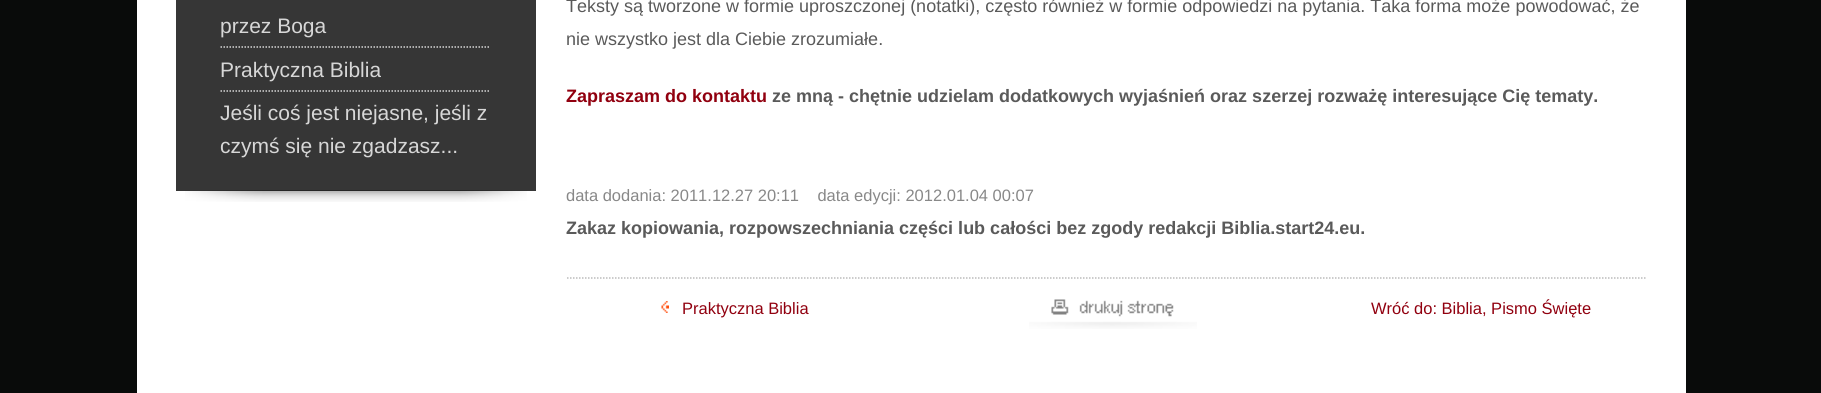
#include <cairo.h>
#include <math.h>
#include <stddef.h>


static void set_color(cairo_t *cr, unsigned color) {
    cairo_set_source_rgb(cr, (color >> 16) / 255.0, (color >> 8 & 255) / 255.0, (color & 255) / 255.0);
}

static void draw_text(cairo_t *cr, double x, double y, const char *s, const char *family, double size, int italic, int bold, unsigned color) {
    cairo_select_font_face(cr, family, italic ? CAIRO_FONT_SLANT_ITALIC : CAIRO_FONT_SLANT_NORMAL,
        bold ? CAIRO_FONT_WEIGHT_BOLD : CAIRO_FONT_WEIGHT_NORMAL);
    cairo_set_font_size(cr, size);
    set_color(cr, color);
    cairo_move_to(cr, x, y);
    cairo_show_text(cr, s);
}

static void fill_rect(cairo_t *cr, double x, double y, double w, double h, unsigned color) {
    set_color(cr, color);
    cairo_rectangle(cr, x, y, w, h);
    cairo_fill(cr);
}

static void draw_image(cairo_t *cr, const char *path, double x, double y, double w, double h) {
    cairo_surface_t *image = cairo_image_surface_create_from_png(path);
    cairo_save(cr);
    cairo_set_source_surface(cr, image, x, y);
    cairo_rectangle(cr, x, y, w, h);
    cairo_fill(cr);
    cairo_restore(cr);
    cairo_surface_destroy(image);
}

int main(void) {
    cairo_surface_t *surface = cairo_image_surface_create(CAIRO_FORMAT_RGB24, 1821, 393);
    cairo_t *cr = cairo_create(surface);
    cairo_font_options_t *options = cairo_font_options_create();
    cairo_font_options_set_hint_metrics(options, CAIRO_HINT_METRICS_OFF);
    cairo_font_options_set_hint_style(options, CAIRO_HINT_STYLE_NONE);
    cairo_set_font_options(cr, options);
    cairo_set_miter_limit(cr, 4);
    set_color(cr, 0x090B0A);
    cairo_paint(cr);
    fill_rect(cr, 137, 0, 1549, 393, 0xFFFFFF);
    fill_rect(cr, 176, 0, 360, 191, 0x363636);
    draw_text(cr, 220, 33, "przez Boga", "Liberation Sans", 21, 0, 0, 0xD7D7D7);
    cairo_new_path(cr);
    cairo_move_to(cr, 220.5, 47);
    cairo_line_to(cr, 490.5, 47);
    cairo_set_line_width(cr, 1.5);
    cairo_set_dash(cr, (double[]){1.5, 1.5}, 2, 0);
    cairo_stroke(cr);
    draw_text(cr, 220, 77, "Praktyczna Biblia", "Liberation Sans", 21, 0, 0, 0xD7D7D7);
    cairo_new_path(cr);
    cairo_move_to(cr, 220.5, 91);
    cairo_line_to(cr, 490.5, 91);
    cairo_stroke(cr);
    draw_text(cr, 220, 120, "Jeśli coś jest niejasne, jeśli z", "Liberation Sans", 21, 0, 0, 0xD7D7D7);
    draw_text(cr, 220, 153, "czymś się nie zgadzasz...", "Liberation Sans", 21, 0, 0, 0xD7D7D7);
    draw_image(cr, "assets/img1.png", 185, 190, 342, 12);
    draw_text(cr, 566, 12, "Teksty są tworzone w formie uproszczonej (notatki), często również w formie odpowiedzi na pytania. Taka forma może powodować, że", "Liberation Sans", 18, 0, 0, 0x5A5A5A);
    draw_text(cr, 566, 45, "nie wszystko jest dla Ciebie zrozumiałe.", "Liberation Sans", 18, 0, 0, 0x5A5A5A);
    draw_text(cr, 566, 102, "Zapraszam do kontaktu", "Liberation Sans", 18, 0, 1, 0x91000F);
    draw_text(cr, 772, 102, "ze mną - chętnie udzielam dodatkowych wyjaśnień oraz szerzej rozważę interesujące Cię tematy.", "Liberation Sans", 18, 0, 1, 0x5A5A5A);
    draw_text(cr, 566, 201, "data dodania: 2011.12.27 20:11    data edycji: 2012.01.04 00:07", "Liberation Sans", 16.5, 0, 0, 0x888888);
    draw_text(cr, 566, 234, "Zakaz kopiowania, rozpowszechniania części lub całości bez zgody redakcji Biblia.start24.eu.", "Liberation Sans", 18, 0, 1, 0x5A5A5A);
    cairo_new_path(cr);
    cairo_move_to(cr, 567, 278);
    cairo_line_to(cr, 1647, 278);
    set_color(cr, 0xBBBBBB);
    cairo_stroke(cr);
    draw_image(cr, "assets/img2.png", 661, 301, 8, 12);
    draw_text(cr, 682, 314, "Praktyczna Biblia", "Liberation Sans", 16.5, 0, 0, 0x91000F);
    draw_image(cr, "assets/img3.png", 1029, 299, 168, 30);
    draw_text(cr, 1371, 314, "Wróć do: Biblia, Pismo Święte", "Liberation Sans", 16.5, 0, 0, 0x91000F);
    cairo_surface_write_to_png(surface, "output.png");
    cairo_font_options_destroy(options);
    cairo_destroy(cr);
    cairo_surface_destroy(surface);
    return 0;
}
